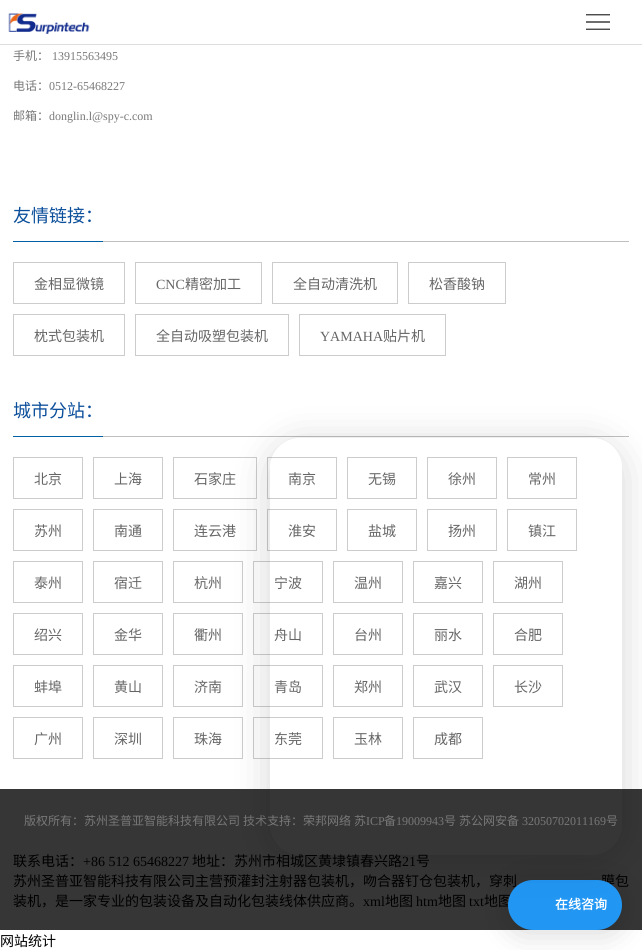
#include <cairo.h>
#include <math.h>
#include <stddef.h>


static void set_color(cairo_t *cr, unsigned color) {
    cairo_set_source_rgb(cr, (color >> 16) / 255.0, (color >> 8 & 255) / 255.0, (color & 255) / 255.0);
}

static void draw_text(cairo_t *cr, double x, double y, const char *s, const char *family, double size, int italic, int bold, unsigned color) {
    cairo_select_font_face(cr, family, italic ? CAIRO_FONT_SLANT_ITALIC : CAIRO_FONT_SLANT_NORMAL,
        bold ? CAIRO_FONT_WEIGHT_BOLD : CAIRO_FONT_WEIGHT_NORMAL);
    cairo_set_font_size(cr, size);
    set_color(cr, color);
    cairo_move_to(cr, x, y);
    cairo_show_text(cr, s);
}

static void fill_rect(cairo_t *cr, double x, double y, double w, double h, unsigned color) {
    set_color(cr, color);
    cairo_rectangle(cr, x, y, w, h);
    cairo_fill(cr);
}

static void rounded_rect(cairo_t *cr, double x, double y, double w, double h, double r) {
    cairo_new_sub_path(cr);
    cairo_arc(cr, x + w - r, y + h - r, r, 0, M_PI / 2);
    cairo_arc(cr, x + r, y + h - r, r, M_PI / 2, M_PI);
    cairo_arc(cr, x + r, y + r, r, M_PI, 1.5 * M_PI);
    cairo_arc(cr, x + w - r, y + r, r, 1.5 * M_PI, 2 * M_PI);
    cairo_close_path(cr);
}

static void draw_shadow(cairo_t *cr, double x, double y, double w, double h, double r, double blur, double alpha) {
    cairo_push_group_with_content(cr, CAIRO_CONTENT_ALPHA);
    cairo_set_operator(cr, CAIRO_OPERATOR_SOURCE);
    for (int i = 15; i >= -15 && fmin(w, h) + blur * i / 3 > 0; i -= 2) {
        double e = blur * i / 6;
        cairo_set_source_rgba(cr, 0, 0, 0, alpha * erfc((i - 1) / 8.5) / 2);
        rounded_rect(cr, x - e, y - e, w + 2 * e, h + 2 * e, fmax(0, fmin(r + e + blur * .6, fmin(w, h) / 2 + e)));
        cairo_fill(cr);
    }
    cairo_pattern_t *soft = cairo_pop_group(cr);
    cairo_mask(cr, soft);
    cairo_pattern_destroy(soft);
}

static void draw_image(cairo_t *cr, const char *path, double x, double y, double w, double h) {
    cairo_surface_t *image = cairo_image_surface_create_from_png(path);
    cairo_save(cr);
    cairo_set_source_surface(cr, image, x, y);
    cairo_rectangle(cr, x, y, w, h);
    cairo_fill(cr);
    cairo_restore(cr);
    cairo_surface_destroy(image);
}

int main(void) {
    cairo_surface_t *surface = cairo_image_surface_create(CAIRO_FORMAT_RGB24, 642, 950);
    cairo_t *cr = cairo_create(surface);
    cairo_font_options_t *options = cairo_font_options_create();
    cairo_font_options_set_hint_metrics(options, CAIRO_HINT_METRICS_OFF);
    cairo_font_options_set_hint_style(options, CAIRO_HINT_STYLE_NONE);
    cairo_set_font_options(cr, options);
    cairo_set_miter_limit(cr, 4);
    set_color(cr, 0xFFFFFF);
    cairo_paint(cr);
    fill_rect(cr, 0, 44, 642, 1, 0xDDDDDD);
    draw_image(cr, "assets/img1.png", 8, 13, 82, 21);
    draw_image(cr, "assets/img2.png", 586, 14, 24, 16);
    draw_text(cr, 13, 60, "手机：", "Noto Sans CJK SC", 12, 0, 0, 0x787878);
    draw_text(cr, 52, 60, "13915563495", "Liberation Serif", 12, 0, 0, 0x787878);
    draw_text(cr, 13, 90, "电话：", "Noto Sans CJK SC", 12, 0, 0, 0x787878);
    draw_text(cr, 49, 90, "0512-65468227", "Liberation Serif", 12, 0, 0, 0x787878);
    draw_text(cr, 13, 120, "邮箱：", "Noto Sans CJK SC", 12, 0, 0, 0x787878);
    draw_text(cr, 49, 120, "donglin.l@spy-c.com", "Liberation Serif", 12, 0, 0, 0x787878);
    fill_rect(cr, 103, 241, 526, 1, 0xBFBFBF);
    fill_rect(cr, 13, 241, 90, 1, 0x0060A4);
    draw_text(cr, 13, 222, "友情链接：", "Noto Sans CJK SC", 18, 0, 0, 0x0C4F9B);
    cairo_rectangle(cr, 13.5, 262.5, 111, 41);
    set_color(cr, 0xCCCCCC);
    cairo_set_line_width(cr, 1);
    cairo_stroke(cr);
    draw_text(cr, 34, 289, "金相显微镜", "Noto Sans CJK SC", 14, 0, 0, 0x666666);
    cairo_rectangle(cr, 135.5, 262.5, 126, 41);
    set_color(cr, 0xCCCCCC);
    cairo_stroke(cr);
    draw_text(cr, 156, 289, "CNC", "Liberation Serif", 14, 0, 0, 0x666666);
    draw_text(cr, 185, 289, "精密加工", "Noto Sans CJK SC", 14, 0, 0, 0x666666);
    cairo_rectangle(cr, 272.5, 262.5, 125, 41);
    set_color(cr, 0xCCCCCC);
    cairo_stroke(cr);
    draw_text(cr, 293, 289, "全自动清洗机", "Noto Sans CJK SC", 14, 0, 0, 0x666666);
    cairo_rectangle(cr, 408.5, 262.5, 97, 41);
    set_color(cr, 0xCCCCCC);
    cairo_stroke(cr);
    draw_text(cr, 429, 289, "松香酸钠", "Noto Sans CJK SC", 14, 0, 0, 0x666666);
    cairo_rectangle(cr, 13.5, 314.5, 111, 41);
    set_color(cr, 0xCCCCCC);
    cairo_stroke(cr);
    draw_text(cr, 34, 341, "枕式包装机", "Noto Sans CJK SC", 14, 0, 0, 0x666666);
    cairo_rectangle(cr, 135.5, 314.5, 153, 41);
    set_color(cr, 0xCCCCCC);
    cairo_stroke(cr);
    draw_text(cr, 156, 341, "全自动吸塑包装机", "Noto Sans CJK SC", 14, 0, 0, 0x666666);
    cairo_rectangle(cr, 299.5, 314.5, 146, 41);
    set_color(cr, 0xCCCCCC);
    cairo_stroke(cr);
    draw_text(cr, 320, 341, "YAMAHA", "Liberation Serif", 14, 0, 0, 0x666666);
    draw_text(cr, 383, 341, "贴片机", "Noto Sans CJK SC", 14, 0, 0, 0x666666);
    fill_rect(cr, 103, 436, 526, 1, 0xBFBFBF);
    fill_rect(cr, 13, 436, 90, 1, 0x0060A4);
    draw_text(cr, 13, 417, "城市分站：", "Noto Sans CJK SC", 18, 0, 0, 0x0C4F9B);
    cairo_rectangle(cr, 13.5, 457.5, 69, 41);
    set_color(cr, 0xCCCCCC);
    cairo_stroke(cr);
    draw_text(cr, 34, 484, "北京", "Noto Sans CJK SC", 14, 0, 0, 0x666666);
    cairo_rectangle(cr, 93.5, 457.5, 69, 41);
    set_color(cr, 0xCCCCCC);
    cairo_stroke(cr);
    draw_text(cr, 114, 484, "上海", "Noto Sans CJK SC", 14, 0, 0, 0x666666);
    cairo_rectangle(cr, 173.5, 457.5, 83, 41);
    set_color(cr, 0xCCCCCC);
    cairo_stroke(cr);
    draw_text(cr, 194, 484, "石家庄", "Noto Sans CJK SC", 14, 0, 0, 0x666666);
    cairo_rectangle(cr, 267.5, 457.5, 69, 41);
    set_color(cr, 0xCCCCCC);
    cairo_stroke(cr);
    draw_text(cr, 288, 484, "南京", "Noto Sans CJK SC", 14, 0, 0, 0x666666);
    cairo_rectangle(cr, 347.5, 457.5, 69, 41);
    set_color(cr, 0xCCCCCC);
    cairo_stroke(cr);
    draw_text(cr, 368, 484, "无锡", "Noto Sans CJK SC", 14, 0, 0, 0x666666);
    cairo_rectangle(cr, 427.5, 457.5, 69, 41);
    set_color(cr, 0xCCCCCC);
    cairo_stroke(cr);
    draw_text(cr, 448, 484, "徐州", "Noto Sans CJK SC", 14, 0, 0, 0x666666);
    cairo_rectangle(cr, 507.5, 457.5, 69, 41);
    set_color(cr, 0xCCCCCC);
    cairo_stroke(cr);
    draw_text(cr, 528, 484, "常州", "Noto Sans CJK SC", 14, 0, 0, 0x666666);
    cairo_rectangle(cr, 13.5, 509.5, 69, 41);
    set_color(cr, 0xCCCCCC);
    cairo_stroke(cr);
    draw_text(cr, 34, 536, "苏州", "Noto Sans CJK SC", 14, 0, 0, 0x666666);
    cairo_rectangle(cr, 93.5, 509.5, 69, 41);
    set_color(cr, 0xCCCCCC);
    cairo_stroke(cr);
    draw_text(cr, 114, 536, "南通", "Noto Sans CJK SC", 14, 0, 0, 0x666666);
    cairo_rectangle(cr, 173.5, 509.5, 83, 41);
    set_color(cr, 0xCCCCCC);
    cairo_stroke(cr);
    draw_text(cr, 194, 536, "连云港", "Noto Sans CJK SC", 14, 0, 0, 0x666666);
    cairo_rectangle(cr, 267.5, 509.5, 69, 41);
    set_color(cr, 0xCCCCCC);
    cairo_stroke(cr);
    draw_text(cr, 288, 536, "淮安", "Noto Sans CJK SC", 14, 0, 0, 0x666666);
    cairo_rectangle(cr, 347.5, 509.5, 69, 41);
    set_color(cr, 0xCCCCCC);
    cairo_stroke(cr);
    draw_text(cr, 368, 536, "盐城", "Noto Sans CJK SC", 14, 0, 0, 0x666666);
    cairo_rectangle(cr, 427.5, 509.5, 69, 41);
    set_color(cr, 0xCCCCCC);
    cairo_stroke(cr);
    draw_text(cr, 448, 536, "扬州", "Noto Sans CJK SC", 14, 0, 0, 0x666666);
    cairo_rectangle(cr, 507.5, 509.5, 69, 41);
    set_color(cr, 0xCCCCCC);
    cairo_stroke(cr);
    draw_text(cr, 528, 536, "镇江", "Noto Sans CJK SC", 14, 0, 0, 0x666666);
    cairo_rectangle(cr, 13.5, 561.5, 69, 41);
    set_color(cr, 0xCCCCCC);
    cairo_stroke(cr);
    draw_text(cr, 34, 588, "泰州", "Noto Sans CJK SC", 14, 0, 0, 0x666666);
    cairo_rectangle(cr, 93.5, 561.5, 69, 41);
    set_color(cr, 0xCCCCCC);
    cairo_stroke(cr);
    draw_text(cr, 114, 588, "宿迁", "Noto Sans CJK SC", 14, 0, 0, 0x666666);
    cairo_rectangle(cr, 173.5, 561.5, 69, 41);
    set_color(cr, 0xCCCCCC);
    cairo_stroke(cr);
    draw_text(cr, 194, 588, "杭州", "Noto Sans CJK SC", 14, 0, 0, 0x666666);
    cairo_rectangle(cr, 253.5, 561.5, 69, 41);
    set_color(cr, 0xCCCCCC);
    cairo_stroke(cr);
    draw_text(cr, 274, 588, "宁波", "Noto Sans CJK SC", 14, 0, 0, 0x666666);
    cairo_rectangle(cr, 333.5, 561.5, 69, 41);
    set_color(cr, 0xCCCCCC);
    cairo_stroke(cr);
    draw_text(cr, 354, 588, "温州", "Noto Sans CJK SC", 14, 0, 0, 0x666666);
    cairo_rectangle(cr, 413.5, 561.5, 69, 41);
    set_color(cr, 0xCCCCCC);
    cairo_stroke(cr);
    draw_text(cr, 434, 588, "嘉兴", "Noto Sans CJK SC", 14, 0, 0, 0x666666);
    cairo_rectangle(cr, 493.5, 561.5, 69, 41);
    set_color(cr, 0xCCCCCC);
    cairo_stroke(cr);
    draw_text(cr, 514, 588, "湖州", "Noto Sans CJK SC", 14, 0, 0, 0x666666);
    cairo_rectangle(cr, 13.5, 613.5, 69, 41);
    set_color(cr, 0xCCCCCC);
    cairo_stroke(cr);
    draw_text(cr, 34, 640, "绍兴", "Noto Sans CJK SC", 14, 0, 0, 0x666666);
    cairo_rectangle(cr, 93.5, 613.5, 69, 41);
    set_color(cr, 0xCCCCCC);
    cairo_stroke(cr);
    draw_text(cr, 114, 640, "金华", "Noto Sans CJK SC", 14, 0, 0, 0x666666);
    cairo_rectangle(cr, 173.5, 613.5, 69, 41);
    set_color(cr, 0xCCCCCC);
    cairo_stroke(cr);
    draw_text(cr, 194, 640, "衢州", "Noto Sans CJK SC", 14, 0, 0, 0x666666);
    cairo_rectangle(cr, 253.5, 613.5, 69, 41);
    set_color(cr, 0xCCCCCC);
    cairo_stroke(cr);
    draw_text(cr, 274, 640, "舟山", "Noto Sans CJK SC", 14, 0, 0, 0x666666);
    cairo_rectangle(cr, 333.5, 613.5, 69, 41);
    set_color(cr, 0xCCCCCC);
    cairo_stroke(cr);
    draw_text(cr, 354, 640, "台州", "Noto Sans CJK SC", 14, 0, 0, 0x666666);
    cairo_rectangle(cr, 413.5, 613.5, 69, 41);
    set_color(cr, 0xCCCCCC);
    cairo_stroke(cr);
    draw_text(cr, 434, 640, "丽水", "Noto Sans CJK SC", 14, 0, 0, 0x666666);
    cairo_rectangle(cr, 493.5, 613.5, 69, 41);
    set_color(cr, 0xCCCCCC);
    cairo_stroke(cr);
    draw_text(cr, 514, 640, "合肥", "Noto Sans CJK SC", 14, 0, 0, 0x666666);
    cairo_rectangle(cr, 13.5, 665.5, 69, 41);
    set_color(cr, 0xCCCCCC);
    cairo_stroke(cr);
    draw_text(cr, 34, 692, "蚌埠", "Noto Sans CJK SC", 14, 0, 0, 0x666666);
    cairo_rectangle(cr, 93.5, 665.5, 69, 41);
    set_color(cr, 0xCCCCCC);
    cairo_stroke(cr);
    draw_text(cr, 114, 692, "黄山", "Noto Sans CJK SC", 14, 0, 0, 0x666666);
    cairo_rectangle(cr, 173.5, 665.5, 69, 41);
    set_color(cr, 0xCCCCCC);
    cairo_stroke(cr);
    draw_text(cr, 194, 692, "济南", "Noto Sans CJK SC", 14, 0, 0, 0x666666);
    cairo_rectangle(cr, 253.5, 665.5, 69, 41);
    set_color(cr, 0xCCCCCC);
    cairo_stroke(cr);
    draw_text(cr, 274, 692, "青岛", "Noto Sans CJK SC", 14, 0, 0, 0x666666);
    cairo_rectangle(cr, 333.5, 665.5, 69, 41);
    set_color(cr, 0xCCCCCC);
    cairo_stroke(cr);
    draw_text(cr, 354, 692, "郑州", "Noto Sans CJK SC", 14, 0, 0, 0x666666);
    cairo_rectangle(cr, 413.5, 665.5, 69, 41);
    set_color(cr, 0xCCCCCC);
    cairo_stroke(cr);
    draw_text(cr, 434, 692, "武汉", "Noto Sans CJK SC", 14, 0, 0, 0x666666);
    cairo_rectangle(cr, 493.5, 665.5, 69, 41);
    set_color(cr, 0xCCCCCC);
    cairo_stroke(cr);
    draw_text(cr, 514, 692, "长沙", "Noto Sans CJK SC", 14, 0, 0, 0x666666);
    cairo_rectangle(cr, 13.5, 717.5, 69, 41);
    set_color(cr, 0xCCCCCC);
    cairo_stroke(cr);
    draw_text(cr, 34, 744, "广州", "Noto Sans CJK SC", 14, 0, 0, 0x666666);
    cairo_rectangle(cr, 93.5, 717.5, 69, 41);
    set_color(cr, 0xCCCCCC);
    cairo_stroke(cr);
    draw_text(cr, 114, 744, "深圳", "Noto Sans CJK SC", 14, 0, 0, 0x666666);
    cairo_rectangle(cr, 173.5, 717.5, 69, 41);
    set_color(cr, 0xCCCCCC);
    cairo_stroke(cr);
    draw_text(cr, 194, 744, "珠海", "Noto Sans CJK SC", 14, 0, 0, 0x666666);
    cairo_rectangle(cr, 253.5, 717.5, 69, 41);
    set_color(cr, 0xCCCCCC);
    cairo_stroke(cr);
    draw_text(cr, 274, 744, "东莞", "Noto Sans CJK SC", 14, 0, 0, 0x666666);
    cairo_rectangle(cr, 333.5, 717.5, 69, 41);
    set_color(cr, 0xCCCCCC);
    cairo_stroke(cr);
    draw_text(cr, 354, 744, "玉林", "Noto Sans CJK SC", 14, 0, 0, 0x666666);
    cairo_rectangle(cr, 413.5, 717.5, 69, 41);
    set_color(cr, 0xCCCCCC);
    cairo_stroke(cr);
    draw_text(cr, 434, 744, "成都", "Noto Sans CJK SC", 14, 0, 0, 0x666666);
    fill_rect(cr, 0, 789, 642, 141, 0x363636);
    draw_text(cr, 24, 825, "版权所有：苏州圣普亚智能科技有限公司", "Noto Sans CJK SC", 12, 0, 0, 0x787878);
    draw_text(cr, 243, 825, "技术支持：荣邦网络", "Noto Sans CJK SC", 12, 0, 0, 0x787878);
    draw_text(cr, 354, 825, "苏", "Noto Sans CJK SC", 12, 0, 0, 0x787878);
    draw_text(cr, 366, 825, "ICP", "Liberation Serif", 12, 0, 0, 0x787878);
    draw_text(cr, 384, 825, "备", "Noto Sans CJK SC", 12, 0, 0, 0x787878);
    draw_text(cr, 396, 825, "19009943", "Liberation Serif", 12, 0, 0, 0x787878);
    draw_text(cr, 444, 825, "号", "Noto Sans CJK SC", 12, 0, 0, 0x787878);
    draw_text(cr, 459, 825, "苏公网安备", "Noto Sans CJK SC", 12, 0, 0, 0x787878);
    draw_text(cr, 522, 825, "32050702011169", "Liberation Serif", 12, 0, 0, 0x787878);
    draw_text(cr, 606, 825, "号", "Noto Sans CJK SC", 12, 0, 0, 0x787878);
    draw_text(cr, 13, 866, "联系电话：", "Noto Sans CJK SC", 14, 0, 0, 0x000000);
    draw_text(cr, 83, 866, "+86 512 65468227", "Liberation Serif", 14, 0, 0, 0x000000);
    draw_text(cr, 192, 866, "地址：苏州市相城区黄埭镇春兴路", "Noto Sans CJK SC", 14, 0, 0, 0x000000);
    draw_text(cr, 402, 866, "21", "Liberation Serif", 14, 0, 0, 0x000000);
    draw_text(cr, 416, 866, "号", "Noto Sans CJK SC", 14, 0, 0, 0x000000);
    draw_text(cr, 13, 886, "苏州圣普亚智能科技有限公司主营预灌封注射器包装机，吻合器钉仓包装机，穿刺", "Noto Sans CJK SC", 14, 0, 0, 0x000000);
    draw_text(cr, 601, 886, "膜包", "Noto Sans CJK SC", 14, 0, 0, 0x000000);
    draw_text(cr, 13, 906, "装机，是一家专业的包装设备及自动化包装线体供应商。", "Noto Sans CJK SC", 14, 0, 0, 0x000000);
    draw_text(cr, 363, 906, "xml", "Liberation Serif", 14, 0, 0, 0x000000);
    draw_text(cr, 385, 906, "地图", "Noto Sans CJK SC", 14, 0, 0, 0x000000);
    draw_text(cr, 416, 906, "htm", "Liberation Serif", 14, 0, 0, 0x000000);
    draw_text(cr, 438, 906, "地图", "Noto Sans CJK SC", 14, 0, 0, 0x000000);
    draw_text(cr, 469, 906, "txt", "Liberation Serif", 14, 0, 0, 0x000000);
    draw_text(cr, 484, 906, "地图", "Noto Sans CJK SC", 14, 0, 0, 0x000000);
    set_color(cr, 0x000000);
    draw_shadow(cr, 508, 882, 114, 50, 25, 16, 0.16);
    set_color(cr, 0x2196F3);
    rounded_rect(cr, 508, 880, 114, 50, 25);
    cairo_fill(cr);
    cairo_save(cr);
    cairo_set_fill_rule(cr, CAIRO_FILL_RULE_EVEN_ODD);
    cairo_new_path(cr);
    cairo_move_to(cr, 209, 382);
    cairo_line_to(cr, 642, 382);
    cairo_line_to(cr, 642, 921);
    cairo_line_to(cr, 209, 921);
    cairo_close_path(cr);
    cairo_move_to(cr, 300, 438);
    cairo_line_to(cr, 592, 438);
    cairo_curve_to(cr, 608.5, 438, 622, 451.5, 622, 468);
    cairo_line_to(cr, 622, 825);
    cairo_curve_to(cr, 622, 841.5, 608.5, 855, 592, 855);
    cairo_line_to(cr, 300, 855);
    cairo_curve_to(cr, 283.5, 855, 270, 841.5, 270, 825);
    cairo_line_to(cr, 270, 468);
    cairo_curve_to(cr, 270, 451.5, 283.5, 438, 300, 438);
    cairo_close_path(cr);
    cairo_clip(cr);
    set_color(cr, 0x000000);
    draw_shadow(cr, 270, 443, 352, 417, 30, 20, 0.16);
    cairo_restore(cr);
    draw_text(cr, 555, 909, "在线咨询", "Noto Sans CJK SC", 13, 0, 1, 0xFFFFFF);
    draw_text(cr, 0, 946, "网站统计", "Noto Sans CJK SC", 14, 0, 0, 0x000000);
    cairo_surface_write_to_png(surface, "output.png");
    cairo_font_options_destroy(options);
    cairo_destroy(cr);
    cairo_surface_destroy(surface);
    return 0;
}
